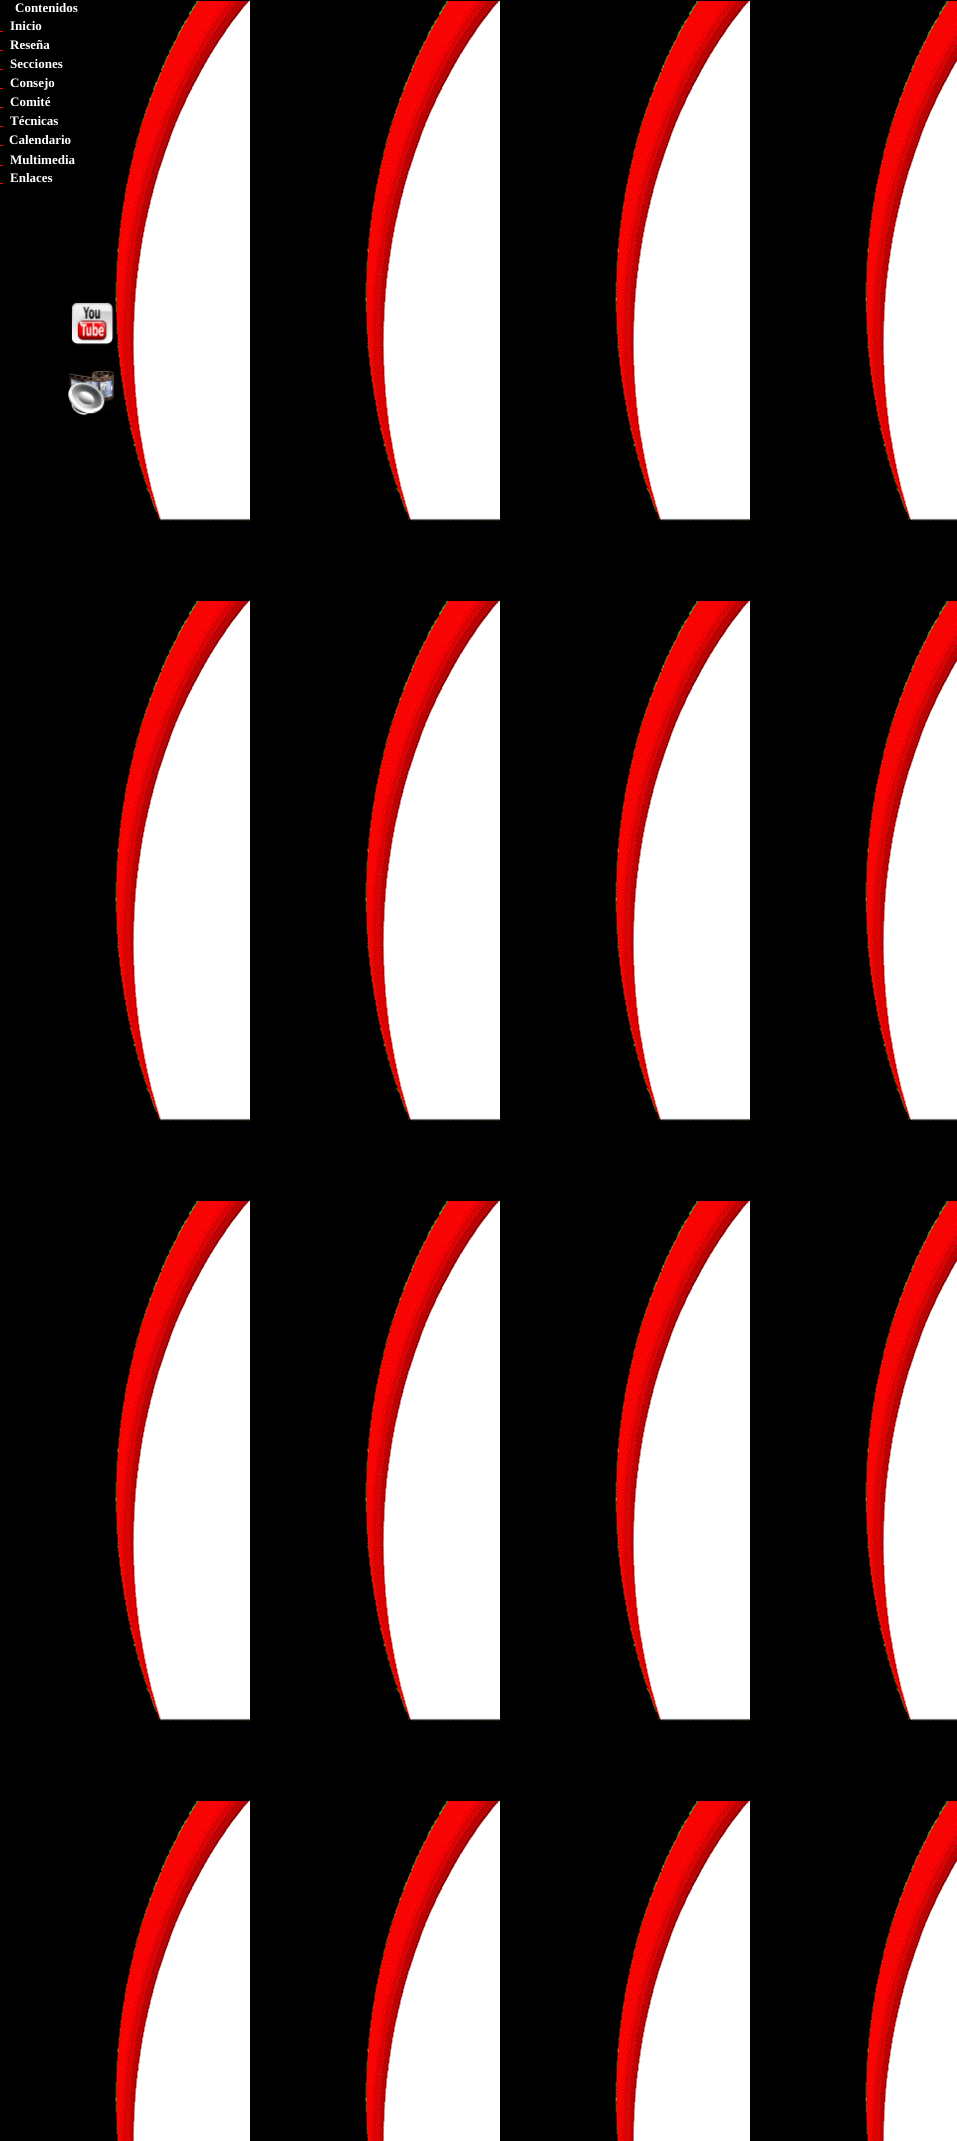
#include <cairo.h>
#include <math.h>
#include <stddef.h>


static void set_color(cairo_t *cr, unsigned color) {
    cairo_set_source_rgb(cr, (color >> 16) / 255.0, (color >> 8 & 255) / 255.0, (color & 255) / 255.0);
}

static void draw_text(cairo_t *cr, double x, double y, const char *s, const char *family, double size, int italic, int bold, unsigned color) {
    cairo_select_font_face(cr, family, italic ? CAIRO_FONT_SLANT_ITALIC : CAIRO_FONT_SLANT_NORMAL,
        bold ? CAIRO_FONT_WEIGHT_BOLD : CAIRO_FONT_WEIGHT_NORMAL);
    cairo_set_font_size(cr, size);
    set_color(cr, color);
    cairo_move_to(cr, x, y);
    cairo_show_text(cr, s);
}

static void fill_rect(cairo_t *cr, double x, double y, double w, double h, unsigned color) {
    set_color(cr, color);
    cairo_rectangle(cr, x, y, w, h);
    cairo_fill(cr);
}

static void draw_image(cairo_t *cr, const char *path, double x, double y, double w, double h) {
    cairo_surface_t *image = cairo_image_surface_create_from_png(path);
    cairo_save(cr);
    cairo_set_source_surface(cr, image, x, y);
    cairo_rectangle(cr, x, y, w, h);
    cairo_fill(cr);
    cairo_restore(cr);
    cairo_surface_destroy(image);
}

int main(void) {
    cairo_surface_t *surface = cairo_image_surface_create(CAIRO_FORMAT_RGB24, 957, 2141);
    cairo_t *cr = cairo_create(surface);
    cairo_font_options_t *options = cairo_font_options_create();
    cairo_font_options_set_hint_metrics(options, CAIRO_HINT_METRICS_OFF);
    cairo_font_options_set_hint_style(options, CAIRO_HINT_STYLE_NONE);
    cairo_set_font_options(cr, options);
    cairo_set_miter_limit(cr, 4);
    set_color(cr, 0xFFFFFF);
    cairo_paint(cr);
    draw_image(cr, "assets/img1.png", 0, 0, 957, 2141);
    draw_text(cr, 15, 12, "Contenidos", "Liberation Serif", 13, 0, 1, 0xFFFFFF);
    draw_text(cr, 10, 30, "Inicio", "Liberation Serif", 13, 0, 1, 0xFFFFFF);
    fill_rect(cr, 0, 31, 3, 1, 0xFF0000);
    draw_text(cr, 10, 49, "Reseña", "Liberation Serif", 13, 0, 1, 0xFFFFFF);
    fill_rect(cr, 0, 50, 3, 1, 0xFF0000);
    draw_text(cr, 10, 68, "Secciones", "Liberation Serif", 13, 0, 1, 0xFFFFFF);
    fill_rect(cr, 0, 69, 3, 1, 0xFF0000);
    fill_rect(cr, 0, 88, 3, 1, 0xFF0000);
    draw_text(cr, 10, 87, "Consejo", "Liberation Serif", 13, 0, 1, 0xFFFFFF);
    draw_text(cr, 10, 106, "Comité", "Liberation Serif", 13, 0, 1, 0xFFFFFF);
    fill_rect(cr, 0, 107, 3, 1, 0xFF0000);
    draw_text(cr, 10, 125, "Técnicas", "Liberation Serif", 13, 0, 1, 0xFFFFFF);
    fill_rect(cr, 0, 126, 3, 1, 0xFF0000);
    draw_text(cr, 9, 144, "Calendario", "Liberation Serif", 13, 0, 1, 0xFFFFFF);
    fill_rect(cr, 0, 145, 3, 1, 0xFF0000);
    draw_text(cr, 10, 164, "Multimedia", "Liberation Serif", 13, 0, 1, 0xFFFFFF);
    fill_rect(cr, 0, 165, 3, 1, 0xFF0000);
    draw_text(cr, 10, 182, "Enlaces", "Liberation Serif", 13, 0, 1, 0xFFFFFF);
    fill_rect(cr, 0, 183, 3, 1, 0xFF0000);
    draw_image(cr, "assets/img2.png", 71, 302, 43, 43);
    draw_image(cr, "assets/img3.png", 68, 370, 47, 46);
    cairo_surface_write_to_png(surface, "output.png");
    cairo_font_options_destroy(options);
    cairo_destroy(cr);
    cairo_surface_destroy(surface);
    return 0;
}
